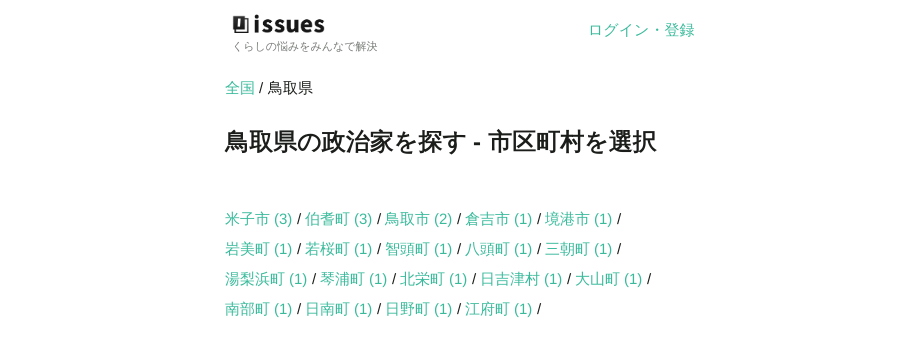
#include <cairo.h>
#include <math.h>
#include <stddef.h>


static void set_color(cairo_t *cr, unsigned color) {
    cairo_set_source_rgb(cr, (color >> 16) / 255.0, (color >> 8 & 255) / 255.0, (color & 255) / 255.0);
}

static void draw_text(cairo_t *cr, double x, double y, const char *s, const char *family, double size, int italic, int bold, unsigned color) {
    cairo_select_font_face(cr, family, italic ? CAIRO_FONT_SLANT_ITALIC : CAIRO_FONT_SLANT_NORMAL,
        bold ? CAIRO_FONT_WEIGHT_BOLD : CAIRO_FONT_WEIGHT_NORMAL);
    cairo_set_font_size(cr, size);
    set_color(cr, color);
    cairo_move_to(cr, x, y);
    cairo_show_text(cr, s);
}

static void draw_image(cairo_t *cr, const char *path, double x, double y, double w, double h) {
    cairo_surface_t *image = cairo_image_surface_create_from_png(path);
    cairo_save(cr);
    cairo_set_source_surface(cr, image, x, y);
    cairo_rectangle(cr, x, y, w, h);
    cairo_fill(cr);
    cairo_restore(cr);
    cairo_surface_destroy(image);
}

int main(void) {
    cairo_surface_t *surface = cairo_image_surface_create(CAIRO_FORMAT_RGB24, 918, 351);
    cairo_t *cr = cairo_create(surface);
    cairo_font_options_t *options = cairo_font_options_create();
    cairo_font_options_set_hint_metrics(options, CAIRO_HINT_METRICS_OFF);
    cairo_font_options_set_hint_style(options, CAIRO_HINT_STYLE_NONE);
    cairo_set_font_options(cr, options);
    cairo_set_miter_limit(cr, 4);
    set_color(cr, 0xFFFFFF);
    cairo_paint(cr);
    draw_text(cr, 588, 35, "ログイン・登録", "WenQuanYi Zen Hei Medium", 15, 0, 0, 0x39BA9B);
    draw_image(cr, "assets/img1.png", 232, 14, 93, 19);
    draw_text(cr, 232, 50, "くらしの悩みをみんなで解決", "WenQuanYi Zen Hei Medium", 11, 0, 0, 0x787C77);
    draw_text(cr, 225, 93, "全国", "WenQuanYi Zen Hei Medium", 15, 0, 0, 0x39BA9B);
    draw_text(cr, 259, 93, "/", "Liberation Sans", 15, 0, 0, 0x1A1D19);
    draw_text(cr, 268, 93, "鳥取県", "WenQuanYi Zen Hei Medium", 15, 0, 0, 0x1A1D19);
    draw_text(cr, 225, 150, "鳥取県の政治家を探す", "WenQuanYi Zen Hei", 24, 0, 1, 0x1A1D19);
    draw_text(cr, 473, 150, "-", "Liberation Sans", 24, 0, 1, 0x1A1D19);
    draw_text(cr, 488, 150, "市区町村を選択", "WenQuanYi Zen Hei", 24, 0, 1, 0x1A1D19);
    draw_text(cr, 225, 224, "米子市", "WenQuanYi Zen Hei Medium", 15, 0, 0, 0x39BA9B);
    draw_text(cr, 274, 224, "(3)", "Liberation Sans", 15, 0, 0, 0x39BA9B);
    draw_text(cr, 297, 224, "/", "Liberation Sans", 15, 0, 0, 0x1A1D19);
    draw_text(cr, 305, 224, "伯耆町", "WenQuanYi Zen Hei Medium", 15, 0, 0, 0x39BA9B);
    draw_text(cr, 354, 224, "(3)", "Liberation Sans", 15, 0, 0, 0x39BA9B);
    draw_text(cr, 377, 224, "/", "Liberation Sans", 15, 0, 0, 0x1A1D19);
    draw_text(cr, 385, 224, "鳥取市", "WenQuanYi Zen Hei Medium", 15, 0, 0, 0x39BA9B);
    draw_text(cr, 434, 224, "(2)", "Liberation Sans", 15, 0, 0, 0x39BA9B);
    draw_text(cr, 457, 224, "/", "Liberation Sans", 15, 0, 0, 0x1A1D19);
    draw_text(cr, 465, 224, "倉吉市", "WenQuanYi Zen Hei Medium", 15, 0, 0, 0x39BA9B);
    draw_text(cr, 514, 224, "(1)", "Liberation Sans", 15, 0, 0, 0x39BA9B);
    draw_text(cr, 537, 224, "/", "Liberation Sans", 15, 0, 0, 0x1A1D19);
    draw_text(cr, 545, 224, "境港市", "WenQuanYi Zen Hei Medium", 15, 0, 0, 0x39BA9B);
    draw_text(cr, 594, 224, "(1)", "Liberation Sans", 15, 0, 0, 0x39BA9B);
    draw_text(cr, 617, 224, "/", "Liberation Sans", 15, 0, 0, 0x1A1D19);
    draw_text(cr, 225, 254, "岩美町", "WenQuanYi Zen Hei Medium", 15, 0, 0, 0x39BA9B);
    draw_text(cr, 274, 254, "(1)", "Liberation Sans", 15, 0, 0, 0x39BA9B);
    draw_text(cr, 297, 254, "/", "Liberation Sans", 15, 0, 0, 0x1A1D19);
    draw_text(cr, 305, 254, "若桜町", "WenQuanYi Zen Hei Medium", 15, 0, 0, 0x39BA9B);
    draw_text(cr, 354, 254, "(1)", "Liberation Sans", 15, 0, 0, 0x39BA9B);
    draw_text(cr, 377, 254, "/", "Liberation Sans", 15, 0, 0, 0x1A1D19);
    draw_text(cr, 385, 254, "智頭町", "WenQuanYi Zen Hei Medium", 15, 0, 0, 0x39BA9B);
    draw_text(cr, 434, 254, "(1)", "Liberation Sans", 15, 0, 0, 0x39BA9B);
    draw_text(cr, 457, 254, "/", "Liberation Sans", 15, 0, 0, 0x1A1D19);
    draw_text(cr, 465, 254, "八頭町", "WenQuanYi Zen Hei Medium", 15, 0, 0, 0x39BA9B);
    draw_text(cr, 514, 254, "(1)", "Liberation Sans", 15, 0, 0, 0x39BA9B);
    draw_text(cr, 537, 254, "/", "Liberation Sans", 15, 0, 0, 0x1A1D19);
    draw_text(cr, 545, 254, "三朝町", "WenQuanYi Zen Hei Medium", 15, 0, 0, 0x39BA9B);
    draw_text(cr, 594, 254, "(1)", "Liberation Sans", 15, 0, 0, 0x39BA9B);
    draw_text(cr, 617, 254, "/", "Liberation Sans", 15, 0, 0, 0x1A1D19);
    draw_text(cr, 225, 284, "湯梨浜町", "WenQuanYi Zen Hei Medium", 15, 0, 0, 0x39BA9B);
    draw_text(cr, 289, 284, "(1)", "Liberation Sans", 15, 0, 0, 0x39BA9B);
    draw_text(cr, 312, 284, "/", "Liberation Sans", 15, 0, 0, 0x1A1D19);
    draw_text(cr, 320, 284, "琴浦町", "WenQuanYi Zen Hei Medium", 15, 0, 0, 0x39BA9B);
    draw_text(cr, 369, 284, "(1)", "Liberation Sans", 15, 0, 0, 0x39BA9B);
    draw_text(cr, 392, 284, "/", "Liberation Sans", 15, 0, 0, 0x1A1D19);
    draw_text(cr, 400, 284, "北栄町", "WenQuanYi Zen Hei Medium", 15, 0, 0, 0x39BA9B);
    draw_text(cr, 449, 284, "(1)", "Liberation Sans", 15, 0, 0, 0x39BA9B);
    draw_text(cr, 472, 284, "/", "Liberation Sans", 15, 0, 0, 0x1A1D19);
    draw_text(cr, 480, 284, "日吉津村", "WenQuanYi Zen Hei Medium", 15, 0, 0, 0x39BA9B);
    draw_text(cr, 544, 284, "(1)", "Liberation Sans", 15, 0, 0, 0x39BA9B);
    draw_text(cr, 567, 284, "/", "Liberation Sans", 15, 0, 0, 0x1A1D19);
    draw_text(cr, 575, 284, "大山町", "WenQuanYi Zen Hei Medium", 15, 0, 0, 0x39BA9B);
    draw_text(cr, 624, 284, "(1)", "Liberation Sans", 15, 0, 0, 0x39BA9B);
    draw_text(cr, 647, 284, "/", "Liberation Sans", 15, 0, 0, 0x1A1D19);
    draw_text(cr, 225, 314, "南部町", "WenQuanYi Zen Hei Medium", 15, 0, 0, 0x39BA9B);
    draw_text(cr, 274, 314, "(1)", "Liberation Sans", 15, 0, 0, 0x39BA9B);
    draw_text(cr, 297, 314, "/", "Liberation Sans", 15, 0, 0, 0x1A1D19);
    draw_text(cr, 305, 314, "日南町", "WenQuanYi Zen Hei Medium", 15, 0, 0, 0x39BA9B);
    draw_text(cr, 354, 314, "(1)", "Liberation Sans", 15, 0, 0, 0x39BA9B);
    draw_text(cr, 377, 314, "/", "Liberation Sans", 15, 0, 0, 0x1A1D19);
    draw_text(cr, 385, 314, "日野町", "WenQuanYi Zen Hei Medium", 15, 0, 0, 0x39BA9B);
    draw_text(cr, 434, 314, "(1)", "Liberation Sans", 15, 0, 0, 0x39BA9B);
    draw_text(cr, 457, 314, "/", "Liberation Sans", 15, 0, 0, 0x1A1D19);
    draw_text(cr, 465, 314, "江府町", "WenQuanYi Zen Hei Medium", 15, 0, 0, 0x39BA9B);
    draw_text(cr, 514, 314, "(1)", "Liberation Sans", 15, 0, 0, 0x39BA9B);
    draw_text(cr, 537, 314, "/", "Liberation Sans", 15, 0, 0, 0x1A1D19);
    cairo_surface_write_to_png(surface, "output.png");
    cairo_font_options_destroy(options);
    cairo_destroy(cr);
    cairo_surface_destroy(surface);
    return 0;
}
